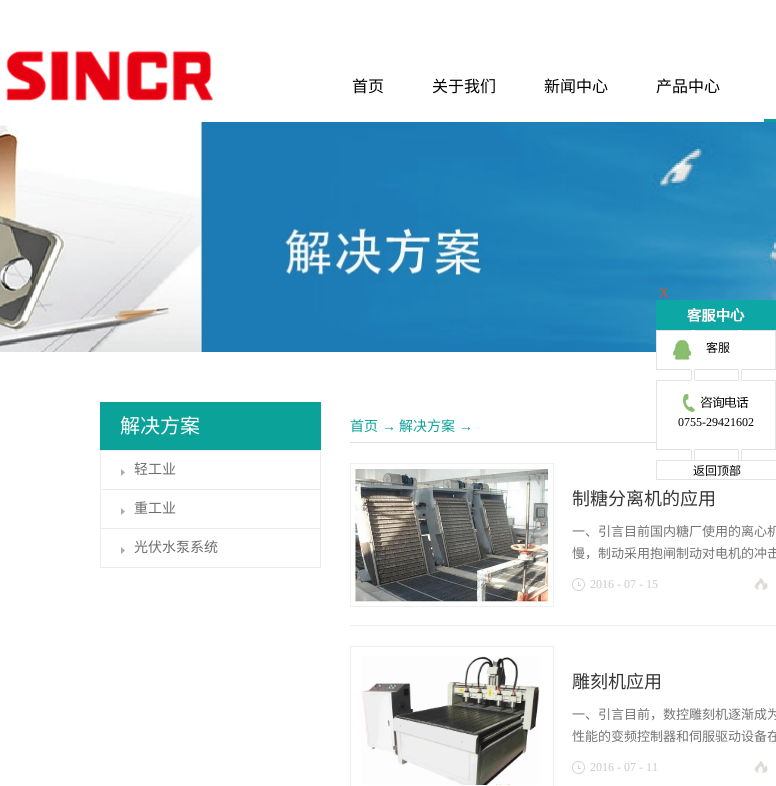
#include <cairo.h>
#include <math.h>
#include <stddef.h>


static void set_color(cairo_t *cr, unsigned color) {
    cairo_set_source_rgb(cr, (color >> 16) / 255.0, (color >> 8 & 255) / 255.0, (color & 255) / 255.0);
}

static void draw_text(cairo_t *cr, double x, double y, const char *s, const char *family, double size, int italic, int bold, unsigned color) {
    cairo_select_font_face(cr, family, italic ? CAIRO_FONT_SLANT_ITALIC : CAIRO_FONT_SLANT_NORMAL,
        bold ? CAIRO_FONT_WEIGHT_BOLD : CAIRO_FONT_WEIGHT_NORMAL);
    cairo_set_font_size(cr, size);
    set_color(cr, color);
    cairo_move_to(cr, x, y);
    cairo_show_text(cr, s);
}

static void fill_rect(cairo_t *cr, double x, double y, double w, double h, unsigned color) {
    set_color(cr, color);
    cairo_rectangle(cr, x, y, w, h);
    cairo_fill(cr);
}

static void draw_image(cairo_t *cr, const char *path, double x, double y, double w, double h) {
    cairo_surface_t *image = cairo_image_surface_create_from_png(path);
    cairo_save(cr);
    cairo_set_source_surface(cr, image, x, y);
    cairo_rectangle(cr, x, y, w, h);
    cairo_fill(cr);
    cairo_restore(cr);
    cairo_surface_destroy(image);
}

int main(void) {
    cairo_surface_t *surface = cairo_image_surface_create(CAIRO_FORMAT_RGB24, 776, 786);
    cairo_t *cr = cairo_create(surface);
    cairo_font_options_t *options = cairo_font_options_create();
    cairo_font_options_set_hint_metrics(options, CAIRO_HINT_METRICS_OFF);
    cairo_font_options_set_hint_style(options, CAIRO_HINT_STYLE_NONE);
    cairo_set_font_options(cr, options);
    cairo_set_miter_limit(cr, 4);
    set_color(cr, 0xFFFFFF);
    cairo_paint(cr);
    draw_image(cr, "assets/img1.png", 6, 50, 207, 51);
    draw_text(cr, 352, 92, "首页", "Noto Sans CJK SC", 16, 0, 0, 0x000000);
    draw_text(cr, 432, 92, "关于我们", "Noto Sans CJK SC", 16, 0, 0, 0x000000);
    draw_text(cr, 544, 92, "新闻中心", "Noto Sans CJK SC", 16, 0, 0, 0x000000);
    draw_text(cr, 656, 92, "产品中心", "Noto Sans CJK SC", 16, 0, 0, 0x000000);
    fill_rect(cr, 764, 119, 12, 3, 0x0BA29A);
    draw_image(cr, "assets/img2.png", 0, 122, 776, 230);
    draw_image(cr, "assets/img3.png", 656, 300, 120, 30);
    draw_text(cr, 659, 297, "X", "Liberation Serif", 13, 0, 0, 0xEE4E10);
    draw_image(cr, "assets/img4.png", 656, 330, 120, 50);
    draw_text(cr, 706, 352, "客服", "Noto Sans CJK SC", 12, 0, 0, 0x000000);
    draw_image(cr, "assets/img5.png", 656, 380, 120, 80);
    draw_text(cr, 678, 426, "0755-29421602", "Liberation Serif", 12, 0, 0, 0x000000);
    cairo_rectangle(cr, 656.5, 460.5, 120, 19);
    set_color(cr, 0xE3E3E3);
    cairo_set_line_width(cr, 1);
    cairo_stroke(cr);
    draw_text(cr, 693, 475, "返回顶部", "Noto Sans CJK SC", 12, 0, 0, 0x000000);
    fill_rect(cr, 100, 402, 221, 48, 0x0BA29A);
    draw_text(cr, 120, 433, "解决方案", "Noto Sans CJK SC", 20, 0, 0, 0xFFFFFF);
    fill_rect(cr, 320, 450, 1, 118, 0xEBEBEB);
    fill_rect(cr, 100, 567, 221, 1, 0xEBEBEB);
    fill_rect(cr, 100, 450, 1, 118, 0xEBEBEB);
    fill_rect(cr, 101, 450, 219, 1, 0xEBEBEB);
    draw_image(cr, "assets/img6.png", 121, 469, 4, 7);
    draw_text(cr, 134, 474, "轻工业", "Noto Sans CJK SC", 14, 0, 0, 0x6C6C6C);
    fill_rect(cr, 101, 489, 219, 1, 0xEBEBEB);
    draw_image(cr, "assets/img6.png", 121, 508, 4, 7);
    draw_text(cr, 134, 513, "重工业", "Noto Sans CJK SC", 14, 0, 0, 0x6C6C6C);
    fill_rect(cr, 101, 528, 219, 1, 0xEBEBEB);
    draw_image(cr, "assets/img6.png", 121, 547, 4, 7);
    draw_text(cr, 134, 552, "光伏水泵系统", "Noto Sans CJK SC", 14, 0, 0, 0x6C6C6C);
    fill_rect(cr, 350, 442, 306, 1, 0xDDDDDD);
    draw_text(cr, 350, 431, "首页", "Noto Sans CJK SC", 14, 0, 0, 0x0BA29A);
    draw_text(cr, 382, 431, "→", "Liberation Serif", 14, 0, 0, 0x0BA29A);
    draw_text(cr, 399, 431, "解决方案", "Noto Sans CJK SC", 14, 0, 0, 0x0BA29A);
    draw_text(cr, 459, 431, "→", "Liberation Serif", 14, 0, 0, 0x0BA29A);
    fill_rect(cr, 350, 625, 426, 1, 0xEFEFEF);
    cairo_rectangle(cr, 350.5, 463.5, 203, 143);
    cairo_stroke(cr);
    draw_image(cr, "assets/img7.png", 355, 469, 194, 133);
    draw_text(cr, 572, 505, "制糖分离机的应用", "Noto Sans CJK SC", 18, 0, 0, 0x363636);
    draw_text(cr, 572, 536, "一、引言目前国内糖厂使用的离心机", "Noto Sans CJK SC", 13, 0, 0, 0x737373);
    draw_text(cr, 572, 558, "慢，制动采用抱闸制动对电机的冲击", "Noto Sans CJK SC", 13, 0, 0, 0x737373);
    draw_image(cr, "assets/img8.png", 572, 578, 13, 13);
    draw_text(cr, 590, 588, "2016 - 07 - 15", "Liberation Serif", 12, 0, 0, 0xC9C8CD);
    draw_image(cr, "assets/img9.png", 754, 578, 14, 12);
    cairo_rectangle(cr, 350.5, 646.5, 203, 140);
    set_color(cr, 0xEFEFEF);
    cairo_stroke(cr);
    draw_image(cr, "assets/img10.png", 361, 656, 179, 129);
    draw_text(cr, 572, 688, "雕刻机应用", "Noto Sans CJK SC", 18, 0, 0, 0x363636);
    draw_text(cr, 572, 719, "一、引言目前，数控雕刻机逐渐成为", "Noto Sans CJK SC", 13, 0, 0, 0x737373);
    draw_text(cr, 572, 741, "性能的变频控制器和伺服驱动设备在", "Noto Sans CJK SC", 13, 0, 0, 0x737373);
    draw_image(cr, "assets/img8.png", 572, 761, 13, 13);
    draw_text(cr, 590, 771, "2016 - 07 - 11", "Liberation Serif", 12, 0, 0, 0xC9C8CD);
    draw_image(cr, "assets/img9.png", 754, 761, 14, 12);
    cairo_surface_write_to_png(surface, "output.png");
    cairo_font_options_destroy(options);
    cairo_destroy(cr);
    cairo_surface_destroy(surface);
    return 0;
}
